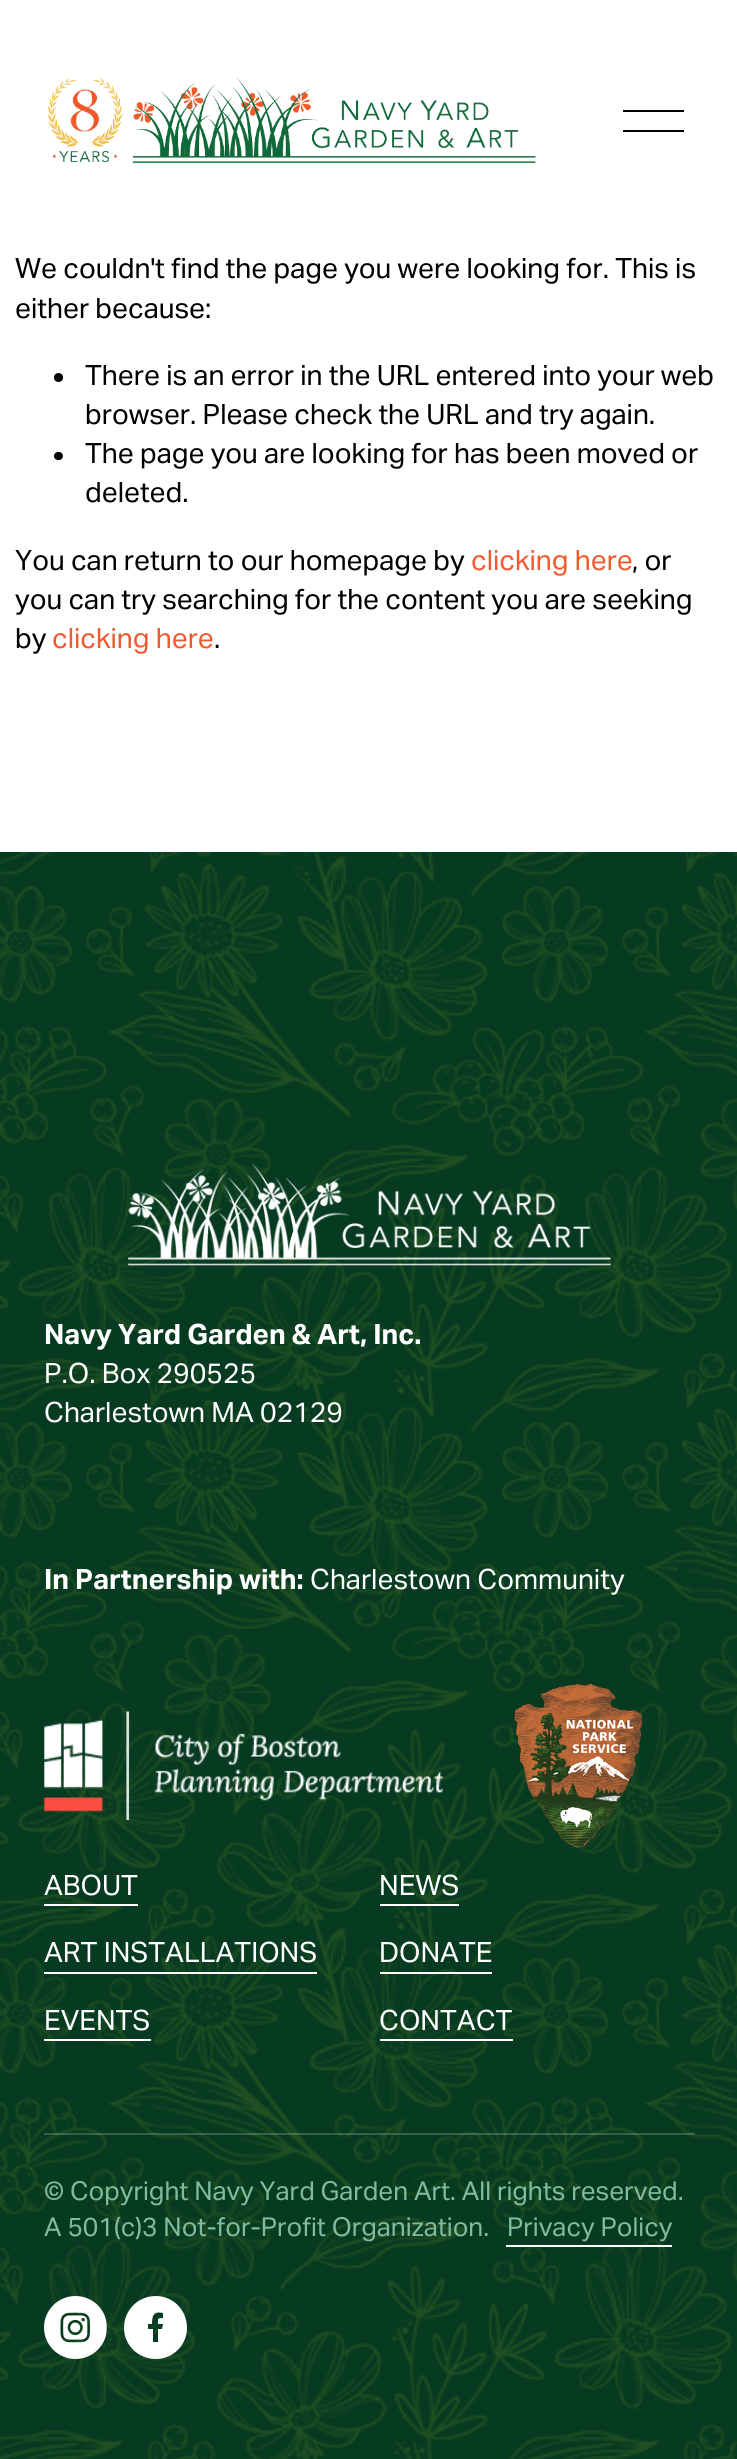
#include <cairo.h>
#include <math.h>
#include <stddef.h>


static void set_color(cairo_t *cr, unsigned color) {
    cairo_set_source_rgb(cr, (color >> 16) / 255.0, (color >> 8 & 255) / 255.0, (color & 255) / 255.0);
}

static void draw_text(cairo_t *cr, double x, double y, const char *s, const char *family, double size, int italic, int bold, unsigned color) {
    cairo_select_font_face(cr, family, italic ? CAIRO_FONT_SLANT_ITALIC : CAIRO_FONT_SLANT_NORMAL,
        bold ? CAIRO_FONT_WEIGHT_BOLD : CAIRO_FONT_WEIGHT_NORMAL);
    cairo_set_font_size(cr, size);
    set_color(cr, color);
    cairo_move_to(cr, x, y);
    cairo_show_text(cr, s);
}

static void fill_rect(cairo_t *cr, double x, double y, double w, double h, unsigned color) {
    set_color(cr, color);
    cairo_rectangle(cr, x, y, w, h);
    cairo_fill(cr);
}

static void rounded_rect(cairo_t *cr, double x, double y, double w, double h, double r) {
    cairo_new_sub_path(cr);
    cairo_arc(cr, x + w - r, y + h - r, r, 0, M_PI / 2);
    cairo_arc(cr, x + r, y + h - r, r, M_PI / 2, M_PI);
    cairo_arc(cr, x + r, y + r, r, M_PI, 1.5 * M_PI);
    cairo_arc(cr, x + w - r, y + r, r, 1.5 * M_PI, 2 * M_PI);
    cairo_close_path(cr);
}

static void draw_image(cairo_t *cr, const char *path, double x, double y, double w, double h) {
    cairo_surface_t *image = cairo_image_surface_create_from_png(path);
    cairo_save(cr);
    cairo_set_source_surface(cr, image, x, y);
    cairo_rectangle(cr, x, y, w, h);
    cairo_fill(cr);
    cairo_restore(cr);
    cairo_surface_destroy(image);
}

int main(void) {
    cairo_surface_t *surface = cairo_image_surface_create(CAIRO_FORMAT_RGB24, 737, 2459);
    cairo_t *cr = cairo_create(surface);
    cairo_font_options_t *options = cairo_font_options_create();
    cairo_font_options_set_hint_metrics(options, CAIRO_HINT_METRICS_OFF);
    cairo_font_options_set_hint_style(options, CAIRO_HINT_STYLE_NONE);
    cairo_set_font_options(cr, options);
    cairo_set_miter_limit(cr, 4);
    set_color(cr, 0xFFFFFF);
    cairo_paint(cr);
    draw_image(cr, "assets/img1.png", 47, 77, 489, 86);
    fill_rect(cr, 623, 110, 61, 2, 0x000000);
    fill_rect(cr, 623, 130, 61, 2, 0x000000);
    draw_text(cr, 15, 278, "We couldn't find the page you were looking for. This is", "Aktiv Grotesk", 28, 0, 0, 0x000000);
    draw_text(cr, 15, 318, "either because:", "Aktiv Grotesk", 28, 0, 0, 0x000000);
    cairo_new_path(cr);
    cairo_arc(cr, 58.5, 377.5, 4.5, 0, 2 * M_PI);
    cairo_fill(cr);
    draw_text(cr, 85, 385, "There is an error in the URL entered into your web", "Aktiv Grotesk", 28, 0, 0, 0x000000);
    draw_text(cr, 85, 424, "browser. Please check the URL and try again.", "Aktiv Grotesk", 28, 0, 0, 0x000000);
    rounded_rect(cr, 54, 452, 9, 8, 4);
    cairo_fill(cr);
    draw_text(cr, 85, 463, "The page you are looking for has been moved or", "Aktiv Grotesk", 28, 0, 0, 0x000000);
    draw_text(cr, 85, 502, "deleted.", "Aktiv Grotesk", 28, 0, 0, 0x000000);
    draw_text(cr, 15, 570, "You can return to our homepage by", "Aktiv Grotesk", 28, 0, 0, 0x000000);
    draw_text(cr, 471, 570, "clicking here", "Aktiv Grotesk", 28, 0, 0, 0xF1592F);
    draw_text(cr, 632, 570, ", or", "Aktiv Grotesk", 28, 0, 0, 0x000000);
    draw_text(cr, 15, 609, "you can try searching for the content you are seeking", "Aktiv Grotesk", 28, 0, 0, 0x000000);
    draw_text(cr, 15, 648, "by", "Aktiv Grotesk", 28, 0, 0, 0x000000);
    draw_text(cr, 52, 648, "clicking here", "Aktiv Grotesk", 28, 0, 0, 0xF1592F);
    draw_text(cr, 214, 648, ".", "Aktiv Grotesk", 28, 0, 0, 0x000000);
    fill_rect(cr, 0, 852, 737, 1607, 0x063A21);
    draw_image(cr, "assets/img2.png", 0, 852, 737, 1607);
    draw_image(cr, "assets/img3.png", 128, 1163, 483, 103);
    draw_text(cr, 44, 1344, "Navy Yard Garden & Art, Inc.", "Aktiv Grotesk", 28, 0, 1, 0xFFFFFF);
    draw_text(cr, 44, 1383, "P.O. Box 290525", "Aktiv Grotesk", 28, 0, 0, 0xFFFFFF);
    draw_text(cr, 44, 1422, "Charlestown MA 02129", "Aktiv Grotesk", 28, 0, 0, 0xFFFFFF);
    draw_text(cr, 44, 1589, "In Partnership with:", "Aktiv Grotesk", 28, 0, 1, 0xFFFFFF);
    draw_text(cr, 310, 1589, "Charlestown Community", "Aktiv Grotesk", 28, 0, 0, 0xFFFFFF);
    draw_image(cr, "assets/img4.png", 44, 1711, 399, 109);
    draw_image(cr, "assets/img5.png", 514, 1683, 129, 165);
    fill_rect(cr, 44, 1904, 94, 2, 0xFFFFFF);
    draw_text(cr, 44, 1895, "ABOUT", "Aktiv Grotesk", 28, 0, 0, 0xFFFFFF);
    fill_rect(cr, 44, 1972, 273, 2, 0xFFFFFF);
    draw_text(cr, 44, 1962, "ART INSTALLATIONS", "Aktiv Grotesk", 28, 0, 0, 0xFFFFFF);
    fill_rect(cr, 44, 2039, 107, 2, 0xFFFFFF);
    draw_text(cr, 44, 2030, "EVENTS", "Aktiv Grotesk", 28, 0, 0, 0xFFFFFF);
    fill_rect(cr, 380, 1904, 79, 2, 0xFFFFFF);
    draw_text(cr, 379, 1895, "NEWS", "Aktiv Grotesk", 28, 0, 0, 0xFFFFFF);
    fill_rect(cr, 380, 1972, 112, 2, 0xFFFFFF);
    draw_text(cr, 379, 1962, "DONATE", "Aktiv Grotesk", 28, 0, 0, 0xFFFFFF);
    fill_rect(cr, 380, 2039, 133, 2, 0xFFFFFF);
    draw_text(cr, 379, 2030, "CONTACT", "Aktiv Grotesk", 28, 0, 0, 0xFFFFFF);
    cairo_set_source_rgba(cr, 1, 1, 1, 0.19);
    cairo_rectangle(cr, 44, 2133, 651, 2);
    cairo_fill(cr);
    draw_text(cr, 44, 2200, "© Copyright Navy Yard Garden Art. All rights reserved.", "Aktiv Grotesk", 26.1, 0, 0, 0x80BA9F);
    draw_text(cr, 44, 2236, "A 501(c)3 Not-for-Profit Organization.", "Aktiv Grotesk", 26.1, 0, 0, 0x80BA9F);
    fill_rect(cr, 506, 2245, 166, 2, 0xFFFFFF);
    draw_text(cr, 507, 2236, "Privacy Policy", "Aktiv Grotesk", 26.1, 0, 0, 0x80BA9F);
    draw_image(cr, "assets/img6.png", 44, 2296, 63, 63);
    set_color(cr, 0xFFFFFF);
    cairo_set_fill_rule(cr, CAIRO_FILL_RULE_EVEN_ODD);
    cairo_new_path(cr);
    cairo_move_to(cr, 156, 2296);
    cairo_curve_to(cr, 138, 2296, 124, 2310, 124, 2328);
    cairo_curve_to(cr, 124, 2345, 138, 2359, 156, 2359);
    cairo_curve_to(cr, 173, 2359, 187, 2345, 187, 2328);
    cairo_curve_to(cr, 187, 2310, 173, 2296, 156, 2296);
    cairo_close_path(cr);
    cairo_move_to(cr, 163, 2318);
    cairo_line_to(cr, 163, 2313);
    cairo_curve_to(cr, 154, 2311, 152, 2315, 152, 2324);
    cairo_line_to(cr, 148, 2324);
    cairo_line_to(cr, 148, 2329);
    cairo_line_to(cr, 153, 2329);
    cairo_line_to(cr, 153, 2342);
    cairo_line_to(cr, 158, 2342);
    cairo_line_to(cr, 158, 2329);
    cairo_line_to(cr, 162, 2329);
    cairo_line_to(cr, 163, 2324);
    cairo_line_to(cr, 158, 2324);
    cairo_curve_to(cr, 158, 2319, 157, 2318, 163, 2318);
    cairo_close_path(cr);
    cairo_fill(cr);
    cairo_surface_write_to_png(surface, "output.png");
    cairo_font_options_destroy(options);
    cairo_destroy(cr);
    cairo_surface_destroy(surface);
    return 0;
}
